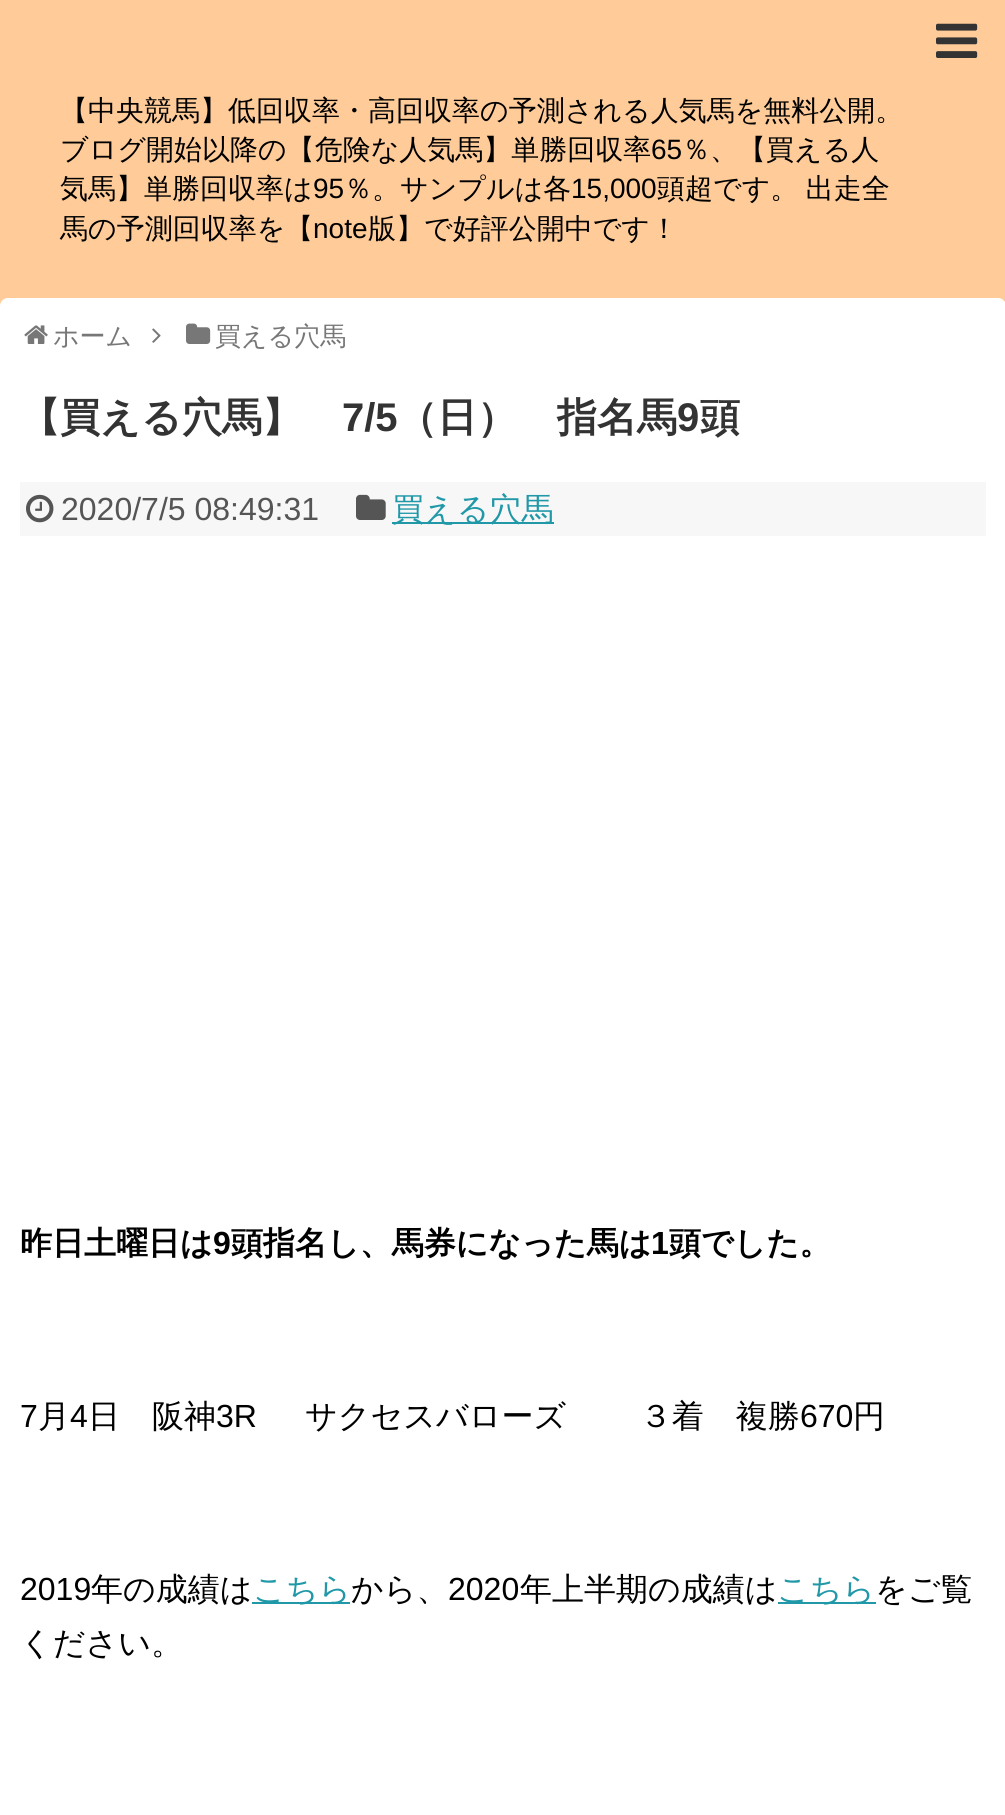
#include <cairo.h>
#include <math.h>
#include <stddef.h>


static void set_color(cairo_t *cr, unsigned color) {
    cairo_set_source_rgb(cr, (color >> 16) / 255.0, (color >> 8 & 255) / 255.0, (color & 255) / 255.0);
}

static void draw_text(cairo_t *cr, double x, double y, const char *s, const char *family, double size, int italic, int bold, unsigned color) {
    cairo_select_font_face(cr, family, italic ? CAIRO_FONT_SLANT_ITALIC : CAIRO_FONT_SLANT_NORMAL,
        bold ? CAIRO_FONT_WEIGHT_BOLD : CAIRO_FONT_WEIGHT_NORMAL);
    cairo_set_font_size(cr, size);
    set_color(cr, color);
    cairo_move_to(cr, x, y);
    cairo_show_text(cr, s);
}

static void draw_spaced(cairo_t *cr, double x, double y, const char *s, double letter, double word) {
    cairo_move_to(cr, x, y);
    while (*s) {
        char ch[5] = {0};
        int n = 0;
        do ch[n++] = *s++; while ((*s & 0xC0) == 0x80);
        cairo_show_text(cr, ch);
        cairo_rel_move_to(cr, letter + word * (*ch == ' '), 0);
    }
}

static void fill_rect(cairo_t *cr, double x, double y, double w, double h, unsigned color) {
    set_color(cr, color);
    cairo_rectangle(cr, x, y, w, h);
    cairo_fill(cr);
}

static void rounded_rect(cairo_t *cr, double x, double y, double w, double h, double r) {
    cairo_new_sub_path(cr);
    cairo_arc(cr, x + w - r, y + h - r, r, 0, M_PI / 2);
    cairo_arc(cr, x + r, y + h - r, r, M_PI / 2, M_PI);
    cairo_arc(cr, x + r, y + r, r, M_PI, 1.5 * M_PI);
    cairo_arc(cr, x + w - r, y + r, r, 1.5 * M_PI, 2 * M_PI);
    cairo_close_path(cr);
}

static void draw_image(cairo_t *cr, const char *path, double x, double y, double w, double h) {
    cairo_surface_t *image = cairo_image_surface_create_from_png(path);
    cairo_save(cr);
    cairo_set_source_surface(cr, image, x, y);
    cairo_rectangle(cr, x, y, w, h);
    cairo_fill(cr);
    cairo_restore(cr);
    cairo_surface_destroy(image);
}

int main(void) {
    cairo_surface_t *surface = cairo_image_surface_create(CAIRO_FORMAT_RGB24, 1005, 1815);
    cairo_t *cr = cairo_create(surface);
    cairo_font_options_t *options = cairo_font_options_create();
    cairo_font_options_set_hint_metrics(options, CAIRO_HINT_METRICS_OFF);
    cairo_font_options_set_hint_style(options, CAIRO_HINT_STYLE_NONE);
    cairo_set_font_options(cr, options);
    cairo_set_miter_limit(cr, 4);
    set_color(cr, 0xFFCC99);
    cairo_paint(cr);
    draw_image(cr, "assets/img1.png", 936, 23, 42, 35);
    draw_text(cr, 60, 120, "【中央競馬】低回収率・高回収率の予測される人気馬を無料公開。", "WenQuanYi Zen Hei Medium", 28, 0, 0, 0x000000);
    draw_text(cr, 60, 159, "ブログ開始以降の【危険な人気馬】単勝回収率", "WenQuanYi Zen Hei Medium", 28, 0, 0, 0x000000);
    draw_text(cr, 651, 159, "65", "Liberation Sans", 28, 0, 0, 0x000000);
    draw_text(cr, 682, 159, "％、【買える人", "WenQuanYi Zen Hei Medium", 28, 0, 0, 0x000000);
    draw_text(cr, 60, 198, "気馬】単勝回収率は", "WenQuanYi Zen Hei Medium", 28, 0, 0, 0x000000);
    draw_text(cr, 313, 198, "95", "Liberation Sans", 28, 0, 0, 0x000000);
    draw_text(cr, 344, 198, "％。サンプルは各", "WenQuanYi Zen Hei Medium", 28, 0, 0, 0x000000);
    draw_text(cr, 571, 198, "15,000", "Liberation Sans", 28, 0, 0, 0x000000);
    cairo_select_font_face(cr, "WenQuanYi Zen Hei Medium", CAIRO_FONT_SLANT_NORMAL, CAIRO_FONT_WEIGHT_NORMAL);
    draw_spaced(cr, 657, 198, "頭超です。 出走全", 0, -1);
    draw_text(cr, 60, 238, "馬の予測回収率を【", "WenQuanYi Zen Hei Medium", 28, 0, 0, 0x000000);
    draw_text(cr, 313, 238, "note", "Liberation Sans", 28, 0, 0, 0x000000);
    draw_text(cr, 368, 238, "版】で好評公開中です！", "WenQuanYi Zen Hei Medium", 28, 0, 0, 0x000000);
    set_color(cr, 0xFFFFFF);
    rounded_rect(cr, 0, 298, 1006, 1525, 8);
    cairo_fill(cr);
    draw_image(cr, "assets/img2.png", 24, 325, 24, 19);
    draw_text(cr, 53, 345, "ホーム", "WenQuanYi Zen Hei Medium", 26, 0, 0, 0x777777);
    draw_image(cr, "assets/img3.png", 152, 328, 9, 15);
    draw_image(cr, "assets/img4.png", 186, 323, 25, 21);
    draw_text(cr, 215, 345, "買える穴馬", "WenQuanYi Zen Hei Medium", 26, 0, 0, 0x777777);
    draw_text(cr, 20, 431, "【買える穴馬】", "WenQuanYi Zen Hei", 40, 0, 1, 0x333333);
    draw_text(cr, 342, 431, "7/5", "Liberation Sans", 40, 0, 1, 0x333333);
    draw_text(cr, 397, 431, "（日）　指名馬", "WenQuanYi Zen Hei", 40, 0, 1, 0x333333);
    draw_text(cr, 677, 431, "9", "Liberation Sans", 40, 0, 1, 0x333333);
    draw_text(cr, 700, 431, "頭", "WenQuanYi Zen Hei", 40, 0, 1, 0x333333);
    fill_rect(cr, 20, 482, 966, 54, 0xF7F7F7);
    draw_image(cr, "assets/img5.png", 26, 494, 28, 29);
    draw_text(cr, 61, 520, "2020/7/5 08:49:31", "Liberation Sans", 32, 0, 0, 0x555555);
    draw_image(cr, "assets/img6.png", 356, 494, 30, 26);
    fill_rect(cr, 392, 522, 162, 2, 0x2098A8);
    draw_text(cr, 392, 520, "買える穴馬", "WenQuanYi Zen Hei Medium", 32, 0, 0, 0x2098A8);
    draw_text(cr, 20, 1254, "昨日土曜日は", "WenQuanYi Zen Hei", 32, 0, 1, 0x000000);
    draw_text(cr, 213, 1254, "9", "Liberation Sans", 32, 0, 1, 0x000000);
    draw_text(cr, 231, 1254, "頭指名し、馬券になった馬は", "WenQuanYi Zen Hei", 32, 0, 1, 0x000000);
    draw_text(cr, 651, 1254, "1", "Liberation Sans", 32, 0, 1, 0x000000);
    draw_text(cr, 669, 1254, "頭でした。", "WenQuanYi Zen Hei", 32, 0, 1, 0x000000);
    draw_text(cr, 20, 1427, "7", "Liberation Sans", 32, 0, 0, 0x000000);
    draw_text(cr, 38, 1427, "月", "WenQuanYi Zen Hei Medium", 32, 0, 0, 0x000000);
    draw_text(cr, 70, 1427, "4", "Liberation Sans", 32, 0, 0, 0x000000);
    draw_text(cr, 88, 1427, "日　阪神", "WenQuanYi Zen Hei Medium", 32, 0, 0, 0x000000);
    draw_text(cr, 216, 1427, "3R", "Liberation Sans", 32, 0, 0, 0x000000);
    draw_text(cr, 305, 1427, "サクセスバローズ　　 ３着　複勝", "WenQuanYi Zen Hei Medium", 32, 0, 0, 0x000000);
    draw_text(cr, 800, 1427, "670", "Liberation Sans", 32, 0, 0, 0x000000);
    draw_text(cr, 853, 1427, "円", "WenQuanYi Zen Hei Medium", 32, 0, 0, 0x000000);
    draw_text(cr, 20, 1600, "2019", "Liberation Sans", 32, 0, 0, 0x000000);
    draw_text(cr, 91, 1600, "年の成績は", "WenQuanYi Zen Hei Medium", 32, 0, 0, 0x000000);
    fill_rect(cr, 252, 1602, 98, 2, 0x2098A8);
    draw_text(cr, 253, 1600, "こちら", "WenQuanYi Zen Hei Medium", 32, 0, 0, 0x2098A8);
    draw_text(cr, 351, 1600, "から、", "WenQuanYi Zen Hei Medium", 32, 0, 0, 0x000000);
    draw_text(cr, 448, 1600, "2020", "Liberation Sans", 32, 0, 0, 0x000000);
    draw_text(cr, 520, 1600, "年上半期の成績は", "WenQuanYi Zen Hei Medium", 32, 0, 0, 0x000000);
    fill_rect(cr, 778, 1602, 98, 2, 0x2098A8);
    draw_text(cr, 777, 1600, "こちら", "WenQuanYi Zen Hei Medium", 32, 0, 0, 0x2098A8);
    draw_text(cr, 875, 1600, "をご覧", "WenQuanYi Zen Hei Medium", 32, 0, 0, 0x000000);
    draw_text(cr, 20, 1654, "ください。", "WenQuanYi Zen Hei Medium", 32, 0, 0, 0x000000);
    cairo_surface_write_to_png(surface, "output.png");
    cairo_font_options_destroy(options);
    cairo_destroy(cr);
    cairo_surface_destroy(surface);
    return 0;
}
